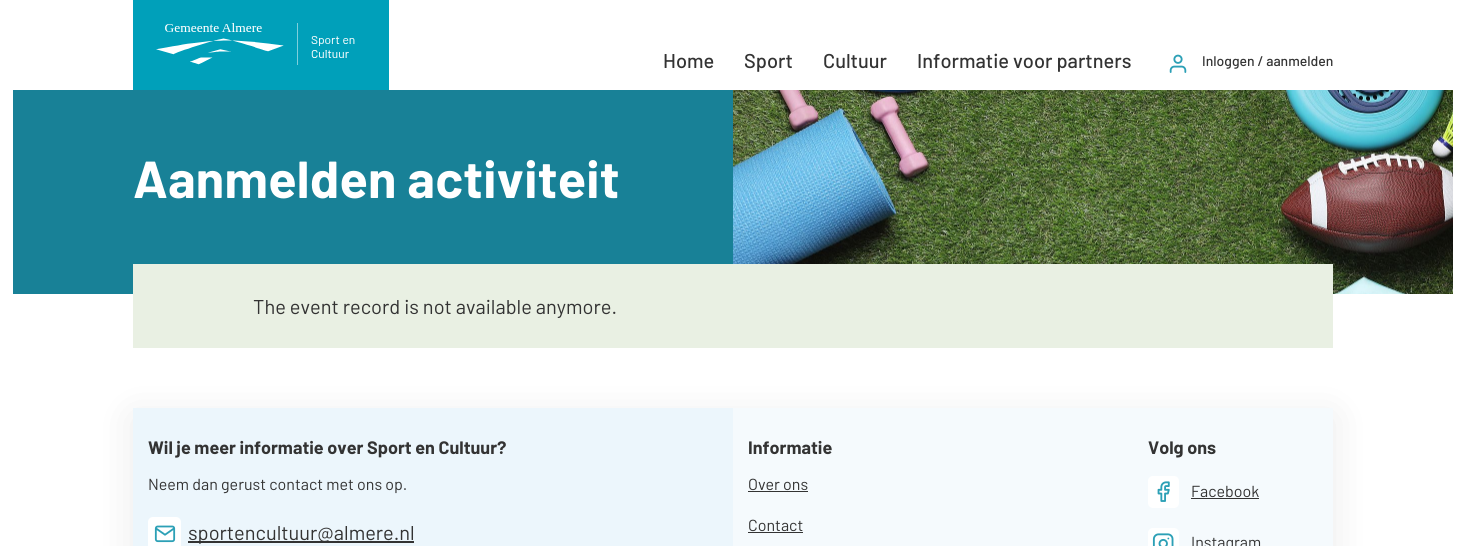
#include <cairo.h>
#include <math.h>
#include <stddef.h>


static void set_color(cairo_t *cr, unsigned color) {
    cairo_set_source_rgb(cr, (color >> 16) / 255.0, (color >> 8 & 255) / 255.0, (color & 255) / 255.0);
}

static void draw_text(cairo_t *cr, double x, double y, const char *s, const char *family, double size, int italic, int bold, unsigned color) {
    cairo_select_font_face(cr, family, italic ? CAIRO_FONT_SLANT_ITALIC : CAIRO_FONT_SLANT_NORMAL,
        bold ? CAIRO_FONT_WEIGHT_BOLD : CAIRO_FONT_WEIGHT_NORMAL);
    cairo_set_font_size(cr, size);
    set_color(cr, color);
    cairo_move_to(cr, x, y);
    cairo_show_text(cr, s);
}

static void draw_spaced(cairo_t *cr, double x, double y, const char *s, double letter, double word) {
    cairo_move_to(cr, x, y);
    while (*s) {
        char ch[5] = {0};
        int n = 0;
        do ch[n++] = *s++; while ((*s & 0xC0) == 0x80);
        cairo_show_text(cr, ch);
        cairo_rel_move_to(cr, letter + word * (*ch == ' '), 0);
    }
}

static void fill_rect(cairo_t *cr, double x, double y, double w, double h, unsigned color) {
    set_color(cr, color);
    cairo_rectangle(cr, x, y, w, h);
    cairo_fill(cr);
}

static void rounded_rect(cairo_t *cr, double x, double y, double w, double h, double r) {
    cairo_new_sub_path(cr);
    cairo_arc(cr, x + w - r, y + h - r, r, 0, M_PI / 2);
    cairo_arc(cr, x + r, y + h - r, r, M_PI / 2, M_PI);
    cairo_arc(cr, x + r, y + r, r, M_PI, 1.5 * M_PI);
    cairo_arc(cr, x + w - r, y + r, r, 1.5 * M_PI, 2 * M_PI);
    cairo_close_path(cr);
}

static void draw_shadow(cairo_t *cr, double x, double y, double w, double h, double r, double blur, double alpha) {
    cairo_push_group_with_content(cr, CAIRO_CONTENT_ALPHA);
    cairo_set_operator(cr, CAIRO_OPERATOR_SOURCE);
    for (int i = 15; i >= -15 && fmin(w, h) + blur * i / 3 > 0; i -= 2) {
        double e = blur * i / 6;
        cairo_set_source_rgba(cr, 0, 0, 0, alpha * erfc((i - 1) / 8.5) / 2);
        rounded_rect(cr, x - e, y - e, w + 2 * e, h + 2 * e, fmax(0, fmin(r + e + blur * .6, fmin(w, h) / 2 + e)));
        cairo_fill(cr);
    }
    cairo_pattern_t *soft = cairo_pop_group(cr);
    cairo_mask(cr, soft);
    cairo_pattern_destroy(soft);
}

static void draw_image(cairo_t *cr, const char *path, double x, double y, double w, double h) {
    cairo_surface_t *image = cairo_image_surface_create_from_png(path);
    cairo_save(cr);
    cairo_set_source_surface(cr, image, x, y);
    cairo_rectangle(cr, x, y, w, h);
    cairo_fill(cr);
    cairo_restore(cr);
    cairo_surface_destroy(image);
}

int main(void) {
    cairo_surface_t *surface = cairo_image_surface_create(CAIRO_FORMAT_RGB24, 1466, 546);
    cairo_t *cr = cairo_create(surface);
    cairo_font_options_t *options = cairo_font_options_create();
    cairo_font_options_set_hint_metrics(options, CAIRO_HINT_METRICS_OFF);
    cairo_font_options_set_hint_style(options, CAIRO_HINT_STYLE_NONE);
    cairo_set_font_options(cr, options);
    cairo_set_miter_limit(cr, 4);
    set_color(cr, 0xFFFFFF);
    cairo_paint(cr);
    draw_image(cr, "assets/img1.png", 133, 0, 256, 90);
    draw_text(cr, 663, 68, "Home", "Barlow Medium", 20, 0, 0, 0x333333);
    draw_text(cr, 744, 68, "Sport", "Barlow Medium", 20, 0, 0, 0x333333);
    draw_text(cr, 823, 68, "Cultuur", "Barlow Medium", 20, 0, 0, 0x333333);
    draw_text(cr, 917, 68, "Informatie voor partners", "Barlow Medium", 20, 0, 0, 0x333333);
    draw_image(cr, "assets/img2.png", 1169, 54, 18, 19);
    draw_text(cr, 1202, 66, "Inloggen / aanmelden", "Barlow Medium", 14, 0, 0, 0x333333);
    fill_rect(cr, 13, 90, 720, 204, 0x188197);
    cairo_select_font_face(cr, "Barlow", CAIRO_FONT_SLANT_NORMAL, CAIRO_FONT_WEIGHT_BOLD);
    cairo_set_font_size(cr, 52);
    set_color(cr, 0xFFFFFF);
    draw_spaced(cr, 133, 198, "Aanmelden activiteit", 0.25, 0);
    draw_image(cr, "assets/img3.png", 733, 90, 720, 204);
    fill_rect(cr, 133, 264, 1200, 84, 0xE9F0E3);
    draw_text(cr, 253, 314, "The event record is not available anymore.", "Barlow", 20, 0, 0, 0x333333);
    set_color(cr, 0x000000);
    draw_shadow(cr, 133, 416, 1200, 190, 0, 20, 0.08);
    fill_rect(cr, 133, 408, 600, 138, 0xECF6FC);
    draw_text(cr, 148, 454, "Wil je meer informatie over Sport en Cultuur?", "Barlow", 18, 0, 1, 0x333333);
    draw_text(cr, 148, 490, "Neem dan gerust contact met ons op.", "Barlow", 16, 0, 0, 0x333333);
    set_color(cr, 0xFFFFFF);
    rounded_rect(cr, 148, 517, 33, 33, 5);
    cairo_fill(cr);
    draw_image(cr, "assets/img4.png", 154, 525, 22, 18);
    fill_rect(cr, 188, 541, 226, 2, 0x333333);
    draw_text(cr, 188, 540, "sportencultuur@almere.nl", "Barlow", 20, 0, 0, 0x333333);
    fill_rect(cr, 733, 408, 600, 138, 0xF5FAFD);
    draw_text(cr, 748, 454, "Informatie", "Barlow", 18, 0, 1, 0x333333);
    draw_text(cr, 748, 490, "Over ons", "Barlow", 16, 0, 0, 0x333333);
    fill_rect(cr, 748, 491, 60, 1, 0x333333);
    draw_text(cr, 748, 531, "Contact", "Barlow", 16, 0, 0, 0x333333);
    fill_rect(cr, 748, 532, 55, 1, 0x333333);
    draw_text(cr, 1148, 454, "Volg ons", "Barlow", 18, 0, 1, 0x333333);
    set_color(cr, 0xFFFFFF);
    rounded_rect(cr, 1148, 476, 31, 32, 5);
    cairo_fill(cr);
    draw_image(cr, "assets/img5.png", 1157, 481, 13, 21);
    draw_text(cr, 1191, 497, "Facebook", "Barlow", 16, 0, 0, 0x333333);
    fill_rect(cr, 1191, 498, 68, 1, 0x333333);
    set_color(cr, 0xFFFFFF);
    rounded_rect(cr, 1148, 528, 31, 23, 5);
    cairo_fill(cr);
    draw_image(cr, "assets/img6.png", 1152, 533, 22, 13);
    draw_text(cr, 1191, 548, "Instagram", "Barlow", 16, 0, 0, 0x333333);
    cairo_surface_write_to_png(surface, "output.png");
    cairo_font_options_destroy(options);
    cairo_destroy(cr);
    cairo_surface_destroy(surface);
    return 0;
}
